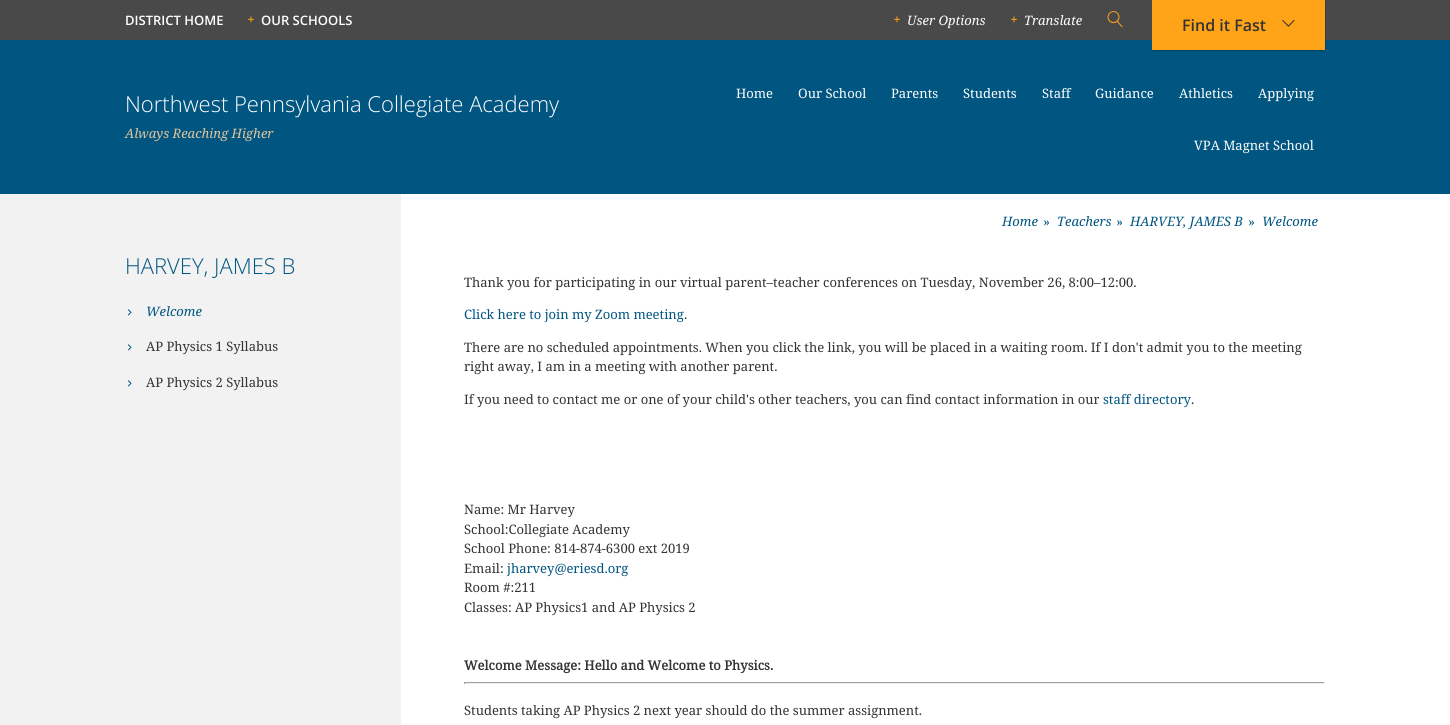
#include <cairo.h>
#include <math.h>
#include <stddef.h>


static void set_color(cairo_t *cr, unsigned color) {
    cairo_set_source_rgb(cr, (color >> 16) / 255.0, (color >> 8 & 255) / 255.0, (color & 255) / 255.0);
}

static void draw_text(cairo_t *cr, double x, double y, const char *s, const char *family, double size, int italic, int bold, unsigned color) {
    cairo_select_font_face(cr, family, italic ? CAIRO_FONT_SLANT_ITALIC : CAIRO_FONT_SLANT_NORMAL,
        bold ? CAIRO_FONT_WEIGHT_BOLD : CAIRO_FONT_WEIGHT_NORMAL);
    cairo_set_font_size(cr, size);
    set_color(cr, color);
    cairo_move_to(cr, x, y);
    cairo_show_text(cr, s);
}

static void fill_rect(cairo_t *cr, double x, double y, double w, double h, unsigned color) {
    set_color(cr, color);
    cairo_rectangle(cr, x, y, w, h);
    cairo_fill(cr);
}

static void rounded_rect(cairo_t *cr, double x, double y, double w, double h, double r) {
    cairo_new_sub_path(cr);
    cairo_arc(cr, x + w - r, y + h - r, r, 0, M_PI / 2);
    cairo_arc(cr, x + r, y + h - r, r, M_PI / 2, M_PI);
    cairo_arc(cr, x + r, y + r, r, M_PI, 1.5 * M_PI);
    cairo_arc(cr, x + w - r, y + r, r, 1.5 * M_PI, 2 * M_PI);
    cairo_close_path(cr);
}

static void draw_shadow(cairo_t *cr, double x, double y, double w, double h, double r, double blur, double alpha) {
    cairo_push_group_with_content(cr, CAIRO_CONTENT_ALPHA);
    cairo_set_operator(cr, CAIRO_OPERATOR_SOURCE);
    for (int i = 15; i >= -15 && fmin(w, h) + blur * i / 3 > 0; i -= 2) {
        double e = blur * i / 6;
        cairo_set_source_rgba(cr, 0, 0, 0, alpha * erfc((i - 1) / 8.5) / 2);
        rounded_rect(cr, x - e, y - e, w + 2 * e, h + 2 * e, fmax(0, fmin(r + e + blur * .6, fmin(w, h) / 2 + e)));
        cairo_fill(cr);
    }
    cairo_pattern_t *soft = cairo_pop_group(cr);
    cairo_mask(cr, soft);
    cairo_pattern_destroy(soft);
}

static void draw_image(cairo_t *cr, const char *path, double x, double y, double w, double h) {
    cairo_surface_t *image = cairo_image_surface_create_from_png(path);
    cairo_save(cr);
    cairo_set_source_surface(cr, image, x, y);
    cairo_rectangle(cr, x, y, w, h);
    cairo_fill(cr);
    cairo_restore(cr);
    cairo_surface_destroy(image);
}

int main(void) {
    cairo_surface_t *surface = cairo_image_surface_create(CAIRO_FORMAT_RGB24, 1450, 725);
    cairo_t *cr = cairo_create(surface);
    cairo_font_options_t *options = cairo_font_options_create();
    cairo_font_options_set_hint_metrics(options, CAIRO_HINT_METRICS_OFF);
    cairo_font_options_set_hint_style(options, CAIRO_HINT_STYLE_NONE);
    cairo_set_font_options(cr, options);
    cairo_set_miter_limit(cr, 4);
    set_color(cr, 0xFFFFFF);
    cairo_paint(cr);
    fill_rect(cr, 0, 0, 1450, 40, 0x494949);
    draw_text(cr, 125, 25, "DISTRICT HOME", "Open Sans SemiBold", 13, 0, 0, 0xFFFFFF);
    draw_image(cr, "assets/img1.png", 248, 16, 6, 7);
    draw_text(cr, 261, 25, "OUR SCHOOLS", "Open Sans SemiBold", 13, 0, 0, 0xFFFFFF);
    draw_image(cr, "assets/img1.png", 894, 16, 6, 7);
    draw_text(cr, 907, 25, "User Options", "Noto Serif", 13, 1, 0, 0xFFFFFF);
    draw_image(cr, "assets/img1.png", 1011, 16, 6, 7);
    draw_text(cr, 1024, 25, "Translate", "Noto Serif", 13, 1, 0, 0xFFFFFF);
    draw_image(cr, "assets/img2.png", 1107, 11, 16, 17);
    fill_rect(cr, 0, 40, 1450, 154, 0x005581);
    set_color(cr, 0x000000);
    draw_shadow(cr, 1153, 1, 173, 50, 0, 0.5, 0.2);
    fill_rect(cr, 1152, 0, 173, 50, 0xFFA319);
    draw_text(cr, 1182, 31, "Find it Fast", "Open Sans SemiBold", 16, 0, 0, 0x333333);
    draw_image(cr, "assets/img3.png", 1282, 19, 13, 8);
    draw_text(cr, 125, 112, "Northwest Pennsylvania Collegiate Academy", "Open Sans Light", 22, 0, 0, 0xFFFFFF);
    draw_text(cr, 125, 138, "Always Reaching Higher", "Noto Serif", 13, 1, 0, 0xE5C69C);
    draw_text(cr, 736, 98, "Home", "Noto Serif", 13, 0, 0, 0xFFFFFF);
    draw_text(cr, 798, 98, "Our School", "Noto Serif", 13, 0, 0, 0xFFFFFF);
    draw_text(cr, 891, 98, "Parents", "Noto Serif", 13, 0, 0, 0xFFFFFF);
    draw_text(cr, 963, 98, "Students", "Noto Serif", 13, 0, 0, 0xFFFFFF);
    draw_text(cr, 1042, 98, "Staff", "Noto Serif", 13, 0, 0, 0xFFFFFF);
    draw_text(cr, 1095, 98, "Guidance", "Noto Serif", 13, 0, 0, 0xFFFFFF);
    draw_text(cr, 1179, 98, "Athletics", "Noto Serif", 13, 0, 0, 0xFFFFFF);
    draw_text(cr, 1258, 98, "Applying", "Noto Serif", 13, 0, 0, 0xFFFFFF);
    draw_text(cr, 1194, 150, "VPA Magnet School", "Noto Serif", 13, 0, 0, 0xFFFFFF);
    fill_rect(cr, 0, 194, 401, 531, 0xF2F2F2);
    draw_text(cr, 125, 274, "HARVEY, JAMES B", "Open Sans Light", 22, 0, 0, 0x005581);
    draw_image(cr, "assets/img4.png", 128, 309, 4, 7);
    draw_text(cr, 146, 316, "Welcome", "Noto Serif", 13, 1, 0, 0x005581);
    draw_image(cr, "assets/img4.png", 128, 344, 4, 7);
    draw_text(cr, 146, 351, "AP Physics 1 Syllabus", "Noto Serif", 13, 0, 0, 0x333333);
    draw_image(cr, "assets/img4.png", 128, 380, 4, 7);
    draw_text(cr, 146, 387, "AP Physics 2 Syllabus", "Noto Serif", 13, 0, 0, 0x333333);
    draw_text(cr, 1002, 226, "Home", "Noto Serif", 13, 1, 0, 0x005581);
    draw_image(cr, "assets/img5.png", 1044, 220, 6, 6);
    draw_text(cr, 1057, 226, "Teachers", "Noto Serif", 13, 1, 0, 0x005581);
    draw_image(cr, "assets/img5.png", 1117, 220, 6, 6);
    draw_text(cr, 1130, 226, "HARVEY, JAMES B", "Noto Serif", 13, 1, 0, 0x005581);
    draw_image(cr, "assets/img5.png", 1249, 220, 6, 6);
    draw_text(cr, 1262, 226, "Welcome", "Noto Serif", 13, 1, 0, 0x005581);
    draw_text(cr, 464, 287, "Thank you for participating in our virtual parent–teacher conferences on Tuesday, November 26, 8:00–12:00.", "Noto Serif", 13, 0, 0, 0x333333);
    draw_text(cr, 464, 319, "Click here to join my Zoom meeting", "Noto Serif", 13, 0, 0, 0x005581);
    draw_text(cr, 684, 319, ".", "Noto Serif", 13, 0, 0, 0x333333);
    draw_text(cr, 464, 352, "There are no scheduled appointments. When you click the link, you will be placed in a waiting room. If I don't admit you to the meeting", "Noto Serif", 13, 0, 0, 0x333333);
    draw_text(cr, 464, 371, "right away, I am in a meeting with another parent.", "Noto Serif", 13, 0, 0, 0x333333);
    draw_text(cr, 464, 404, "If you need to contact me or one of your child's other teachers, you can find contact information in our", "Noto Serif", 13, 0, 0, 0x333333);
    draw_text(cr, 1103, 404, "staff directory", "Noto Serif", 13, 0, 0, 0x005581);
    draw_text(cr, 1191, 404, ".", "Noto Serif", 13, 0, 0, 0x333333);
    draw_text(cr, 464, 514, "Name: Mr Harvey", "Noto Serif", 13, 0, 0, 0x333333);
    draw_text(cr, 464, 534, "School:Collegiate Academy", "Noto Serif", 13, 0, 0, 0x333333);
    draw_text(cr, 464, 553, "School Phone: 814-874-6300 ext 2019", "Noto Serif", 13, 0, 0, 0x333333);
    draw_text(cr, 464, 573, "Email:", "Noto Serif", 13, 0, 0, 0x333333);
    draw_text(cr, 507, 573, "jharvey@eriesd.org", "Noto Serif", 13, 0, 0, 0x005581);
    draw_text(cr, 464, 592, "Room #:211", "Noto Serif", 13, 0, 0, 0x333333);
    draw_text(cr, 464, 612, "Classes: AP Physics1 and AP Physics 2", "Noto Serif", 13, 0, 0, 0x333333);
    draw_text(cr, 464, 670, "Welcome Message: Hello and Welcome to Physics.", "Noto Serif", 13, 0, 1, 0x333333);
    fill_rect(cr, 464, 682, 861, 1, 0x9F9F9F);
    fill_rect(cr, 1324, 682, 1, 2, 0xEEEEEE);
    fill_rect(cr, 464, 683, 861, 1, 0xEEEEEE);
    fill_rect(cr, 464, 682, 1, 2, 0x9F9F9F);
    draw_text(cr, 464, 715, "Students taking AP Physics 2 next year should do the summer assignment.", "Noto Serif", 13, 0, 0, 0x333333);
    cairo_surface_write_to_png(surface, "output.png");
    cairo_font_options_destroy(options);
    cairo_destroy(cr);
    cairo_surface_destroy(surface);
    return 0;
}
